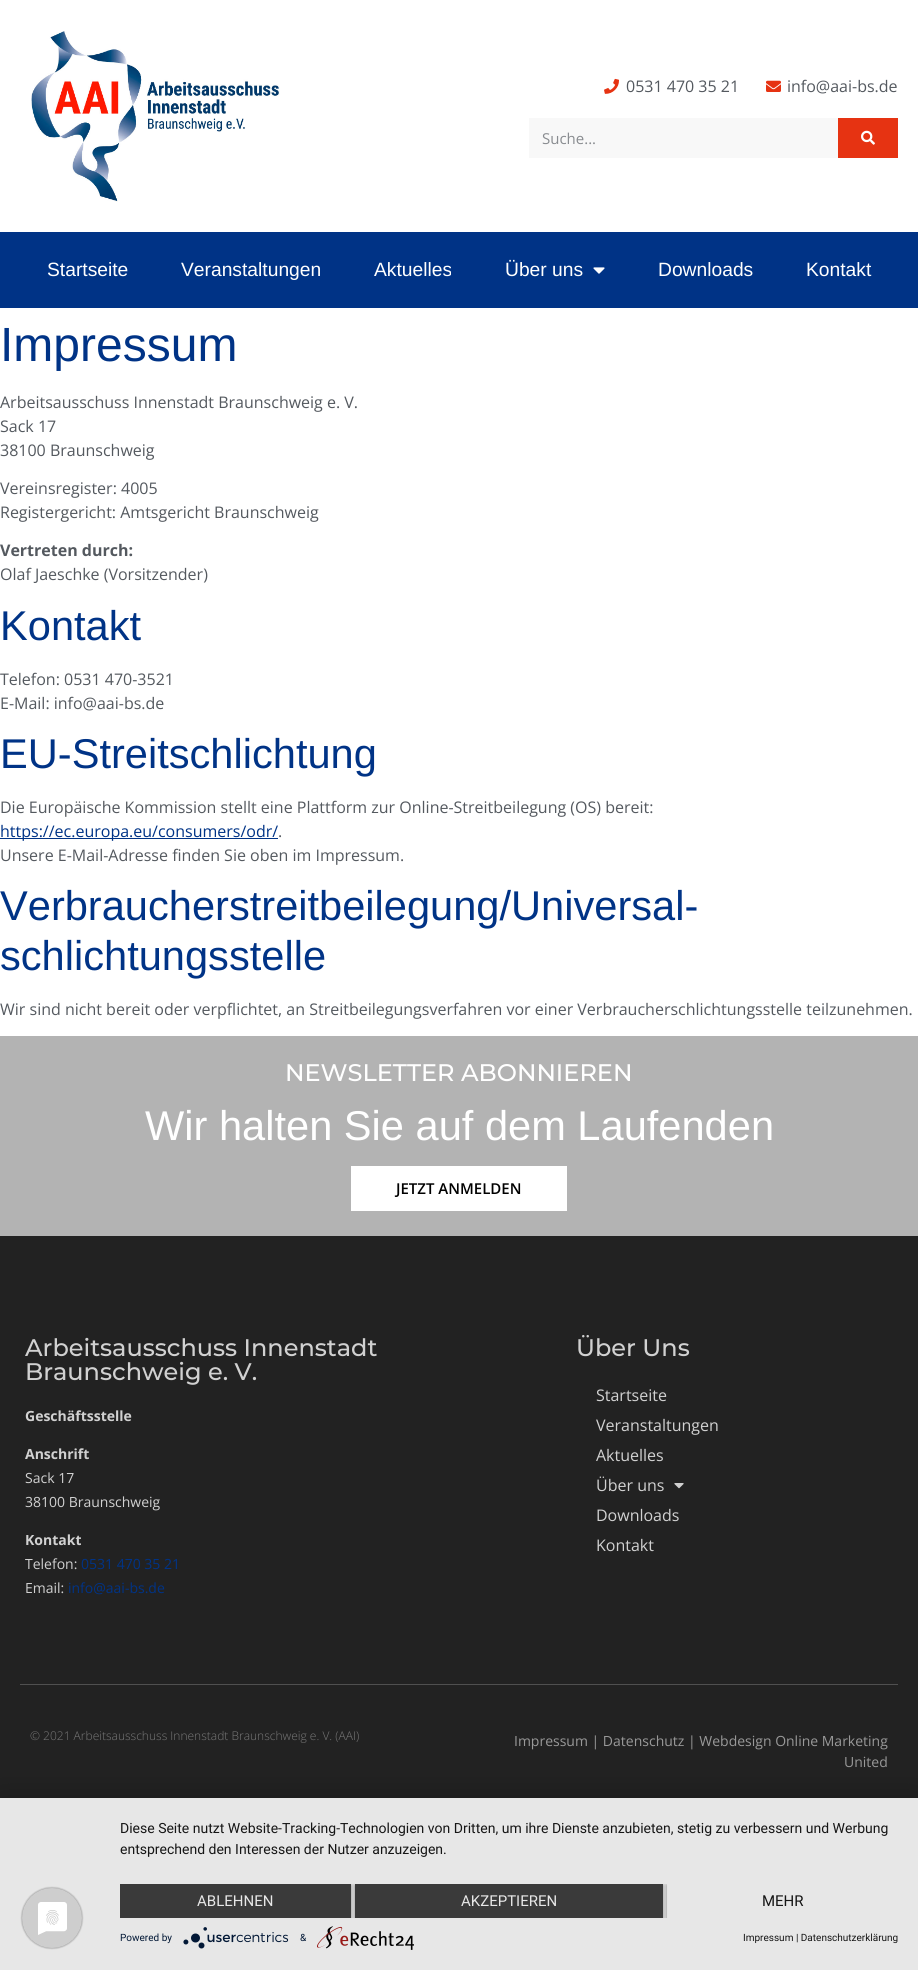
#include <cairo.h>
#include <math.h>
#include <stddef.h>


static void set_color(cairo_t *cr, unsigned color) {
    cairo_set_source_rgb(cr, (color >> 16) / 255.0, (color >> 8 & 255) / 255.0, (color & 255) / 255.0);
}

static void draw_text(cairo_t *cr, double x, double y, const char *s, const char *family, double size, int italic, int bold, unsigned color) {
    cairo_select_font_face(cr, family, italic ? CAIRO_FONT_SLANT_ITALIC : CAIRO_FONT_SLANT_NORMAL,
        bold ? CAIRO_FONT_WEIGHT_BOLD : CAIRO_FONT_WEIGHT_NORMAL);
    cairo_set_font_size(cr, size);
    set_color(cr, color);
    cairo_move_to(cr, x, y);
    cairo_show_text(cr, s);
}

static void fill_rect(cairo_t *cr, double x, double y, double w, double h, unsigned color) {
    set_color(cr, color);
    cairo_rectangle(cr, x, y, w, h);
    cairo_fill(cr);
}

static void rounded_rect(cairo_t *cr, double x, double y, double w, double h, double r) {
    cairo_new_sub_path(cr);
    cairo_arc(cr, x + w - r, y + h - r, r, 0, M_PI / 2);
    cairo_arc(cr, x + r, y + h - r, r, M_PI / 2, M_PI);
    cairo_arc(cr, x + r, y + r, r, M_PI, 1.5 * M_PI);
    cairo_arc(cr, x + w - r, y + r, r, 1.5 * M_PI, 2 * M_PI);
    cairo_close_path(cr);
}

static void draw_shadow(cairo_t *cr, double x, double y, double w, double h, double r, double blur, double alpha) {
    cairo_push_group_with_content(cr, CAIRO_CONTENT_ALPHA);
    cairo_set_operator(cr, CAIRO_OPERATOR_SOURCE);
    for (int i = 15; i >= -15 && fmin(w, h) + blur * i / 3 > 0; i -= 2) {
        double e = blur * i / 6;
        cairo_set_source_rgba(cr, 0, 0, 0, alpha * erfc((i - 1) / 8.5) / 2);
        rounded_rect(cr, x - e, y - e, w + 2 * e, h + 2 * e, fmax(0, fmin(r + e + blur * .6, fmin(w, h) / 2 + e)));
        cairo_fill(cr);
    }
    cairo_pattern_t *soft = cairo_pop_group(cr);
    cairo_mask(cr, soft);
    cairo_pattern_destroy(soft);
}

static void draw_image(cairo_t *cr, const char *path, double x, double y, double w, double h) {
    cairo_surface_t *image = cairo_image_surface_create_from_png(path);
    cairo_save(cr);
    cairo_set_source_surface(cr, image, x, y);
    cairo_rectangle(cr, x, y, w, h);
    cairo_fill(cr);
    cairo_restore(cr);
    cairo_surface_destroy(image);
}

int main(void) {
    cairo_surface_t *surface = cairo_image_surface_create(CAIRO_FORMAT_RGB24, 918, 1970);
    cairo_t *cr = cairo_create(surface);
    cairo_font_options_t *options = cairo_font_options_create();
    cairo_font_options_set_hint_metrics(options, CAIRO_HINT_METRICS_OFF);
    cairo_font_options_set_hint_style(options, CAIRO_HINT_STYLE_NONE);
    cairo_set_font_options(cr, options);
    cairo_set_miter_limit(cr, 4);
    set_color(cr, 0xFFFFFF);
    cairo_paint(cr);
    draw_image(cr, "assets/img1.png", 31, 31, 249, 171);
    draw_image(cr, "assets/img2.png", 604, 78, 15, 16);
    draw_text(cr, 626, 92, "0531 470 35 21", "Open Sans", 16, 0, 0, 0x54595F);
    draw_image(cr, "assets/img3.png", 766, 80, 15, 12);
    draw_text(cr, 787, 92, "info@aai-bs.de", "Open Sans", 16, 0, 0, 0x54595F);
    fill_rect(cr, 529, 118, 309, 40, 0xF8F8F8);
    draw_text(cr, 542, 144, "Suche...", "Open Sans", 15, 0, 0, 0x898C90);
    fill_rect(cr, 838, 118, 60, 40, 0xE63312);
    draw_image(cr, "assets/img4.png", 861, 130, 14, 15);
    fill_rect(cr, 0, 232, 918, 76, 0x003386);
    draw_text(cr, 47, 276, "Startseite", "Liberation Sans", 19.25, 0, 0, 0xFFFFFF);
    draw_text(cr, 181, 276, "Veranstaltungen", "Liberation Sans", 19.25, 0, 0, 0xFFFFFF);
    draw_text(cr, 374, 276, "Aktuelles", "Liberation Sans", 19.25, 0, 0, 0xFFFFFF);
    draw_text(cr, 505, 276, "Über uns", "Liberation Sans", 19.25, 0, 0, 0xFFFFFF);
    draw_image(cr, "assets/img5.png", 593, 267, 12, 7);
    draw_text(cr, 658, 276, "Downloads", "Liberation Sans", 19.25, 0, 0, 0xFFFFFF);
    draw_text(cr, 806, 276, "Kontakt", "Liberation Sans", 19.25, 0, 0, 0xFFFFFF);
    draw_text(cr, 0, 361, "Impressum", "Liberation Sans", 48, 0, 0, 0x003386);
    draw_text(cr, 0, 408, "Arbeitsausschuss Innenstadt Braunschweig e. V.", "Open Sans", 16, 0, 0, 0x54595F);
    draw_text(cr, 0, 432, "Sack 17", "Open Sans", 16, 0, 0, 0x54595F);
    draw_text(cr, 0, 456, "38100 Braunschweig", "Open Sans", 16, 0, 0, 0x54595F);
    draw_text(cr, 0, 494, "Vereinsregister: 4005", "Open Sans", 16, 0, 0, 0x54595F);
    draw_text(cr, 0, 518, "Registergericht: Amtsgericht Braunschweig", "Open Sans", 16, 0, 0, 0x54595F);
    draw_text(cr, 0, 556, "Vertreten durch:", "Open Sans", 16, 0, 1, 0x54595F);
    draw_text(cr, 0, 580, "Olaf Jaeschke (Vorsitzender)", "Open Sans", 16, 0, 0, 0x54595F);
    draw_text(cr, 0, 640, "Kontakt", "Liberation Sans", 41.6, 0, 0, 0x003386);
    draw_text(cr, 0, 685, "Telefon: 0531 470-3521", "Open Sans", 16, 0, 0, 0x54595F);
    draw_text(cr, 0, 709, "E-Mail: info@aai-bs.de", "Open Sans", 16, 0, 0, 0x54595F);
    draw_text(cr, 0, 768, "EU-Streitschlichtung", "Liberation Sans", 41.6, 0, 0, 0x003386);
    draw_text(cr, 0, 813, "Die Europäische Kommission stellt eine Plattform zur Online-Streitbeilegung (OS) bereit:", "Open Sans", 16, 0, 0, 0x54595F);
    fill_rect(cr, 0, 838, 278, 1, 0x003386);
    draw_text(cr, 0, 837, "https://ec.europa.eu/consumers/odr/", "Open Sans", 16, 0, 0, 0x003386);
    draw_text(cr, 278, 837, ".", "Open Sans", 16, 0, 0, 0x54595F);
    draw_text(cr, 0, 861, "Unsere E-Mail-Adresse finden Sie oben im Impressum.", "Open Sans", 16, 0, 0, 0x54595F);
    draw_text(cr, 0, 920, "Verbraucherstreitbeilegung/Universal-", "Liberation Sans", 41.6, 0, 0, 0x003386);
    draw_text(cr, 0, 970, "schlichtungsstelle", "Liberation Sans", 41.6, 0, 0, 0x003386);
    draw_text(cr, 0, 1015, "Wir sind nicht bereit oder verpflichtet, an Streitbeilegungsverfahren vor einer Verbraucherschlichtungsstelle teilzunehmen.", "Open Sans", 16, 0, 0, 0x54595F);
    fill_rect(cr, 0, 1036, 918, 200, 0xB3B3B3);
    draw_text(cr, 285, 1081, "NEWSLETTER ABONNIEREN", "Montserrat Medium", 24, 0, 0, 0xFFFFFF);
    draw_text(cr, 145, 1140, "Wir halten Sie auf dem Laufenden", "Liberation Sans", 41.6, 0, 0, 0xFFFFFF);
    fill_rect(cr, 351, 1166, 216, 45, 0xFFFFFF);
    draw_text(cr, 396, 1194, "JETZT ANMELDEN", "Open Sans SemiBold", 15, 0, 0, 0x000000);
    fill_rect(cr, 0, 1236, 918, 562, 0x222222);
    draw_text(cr, 25, 1356, "Arbeitsausschuss Innenstadt", "Montserrat Medium", 24, 0, 0, 0xD1D1D1);
    draw_text(cr, 25, 1380, "Braunschweig e. V.", "Montserrat Medium", 24, 0, 0, 0xD1D1D1);
    draw_text(cr, 25, 1421, "Geschäftsstelle", "Open Sans", 14, 0, 1, 0xD1D1D1);
    draw_text(cr, 25, 1459, "Anschrift", "Open Sans", 14, 0, 1, 0xD1D1D1);
    draw_text(cr, 25, 1483, "Sack 17", "Open Sans", 14, 0, 0, 0xD1D1D1);
    draw_text(cr, 25, 1507, "38100 Braunschweig", "Open Sans", 14, 0, 0, 0xD1D1D1);
    draw_text(cr, 25, 1545, "Kontakt", "Open Sans", 14, 0, 1, 0xD1D1D1);
    draw_text(cr, 25, 1569, "Telefon:", "Open Sans", 14, 0, 0, 0xD1D1D1);
    draw_text(cr, 81, 1569, "0531 470 35 21", "Open Sans", 14, 0, 0, 0x003386);
    draw_text(cr, 25, 1593, "Email:", "Open Sans", 14, 0, 0, 0xD1D1D1);
    draw_text(cr, 68, 1593, "info@aai-bs.de", "Open Sans", 14, 0, 0, 0x003386);
    draw_text(cr, 576, 1356, "Über Uns", "Montserrat Medium", 24, 0, 0, 0xD1D1D1);
    draw_text(cr, 596, 1401, "Startseite", "Open Sans", 16, 0, 0, 0xD1D1D1);
    draw_text(cr, 596, 1431, "Veranstaltungen", "Open Sans", 16, 0, 0, 0xD1D1D1);
    draw_text(cr, 596, 1461, "Aktuelles", "Open Sans", 16, 0, 0, 0xD1D1D1);
    draw_text(cr, 596, 1491, "Über uns", "Open Sans", 16, 0, 0, 0xD1D1D1);
    draw_image(cr, "assets/img6.png", 674, 1483, 10, 6);
    draw_text(cr, 596, 1521, "Downloads", "Open Sans", 16, 0, 0, 0xD1D1D1);
    draw_text(cr, 596, 1551, "Kontakt", "Open Sans", 16, 0, 0, 0xD1D1D1);
    fill_rect(cr, 20, 1684, 878, 1, 0x505050);
    draw_text(cr, 30, 1740, "© 2021 Arbeitsausschuss Innenstadt Braunschweig e. V. (AAI)", "Open Sans Light", 12, 0, 0, 0x787878);
    draw_text(cr, 514, 1746, "Impressum | Datenschutz | Webdesign Online Marketing", "Open Sans", 14, 0, 0, 0x999999);
    draw_text(cr, 844, 1767, "United", "Open Sans", 14, 0, 0, 0x999999);
    set_color(cr, 0x000000);
    draw_shadow(cr, 0, 1804, 918, 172, 0, 18, 0.3);
    fill_rect(cr, 0, 1798, 918, 172, 0xE7E7E7);
    draw_image(cr, "assets/img7.png", 20, 1886, 64, 64);
    draw_text(cr, 120, 1833, "Diese Seite nutzt Website-Tracking-Technologien von Dritten, um ihre Dienste anzubieten, stetig zu verbessern und Werbung", "Roboto", 14, 0, 0, 0x161616);
    draw_text(cr, 120, 1854, "entsprechend den Interessen der Nutzer anzuzeigen.", "Roboto", 14, 0, 0, 0x161616);
    cairo_save(cr);
    cairo_rectangle(cr, 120, 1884, 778, 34);
    cairo_clip(cr);
    set_color(cr, 0x000000);
    draw_shadow(cr, 120, 1885, 231, 34, 0, 2, 0.4);
    cairo_restore(cr);
    fill_rect(cr, 120, 1884, 231, 34, 0x3A3A3A);
    draw_text(cr, 197, 1906, "ABLEHNEN", "Roboto", 15, 0, 0, 0xE7E7E7);
    cairo_save(cr);
    cairo_rectangle(cr, 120, 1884, 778, 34);
    cairo_clip(cr);
    set_color(cr, 0x000000);
    draw_shadow(cr, 355, 1885, 308, 34, 0, 2, 0.4);
    cairo_restore(cr);
    fill_rect(cr, 355, 1884, 308, 34, 0x3A3A3A);
    draw_text(cr, 461, 1906, "AKZEPTIEREN", "Roboto", 15, 0, 0, 0xE7E7E7);
    cairo_save(cr);
    cairo_rectangle(cr, 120, 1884, 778, 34);
    cairo_clip(cr);
    cairo_rectangle(cr, 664, 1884, 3, 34);
    cairo_clip(cr);
    set_color(cr, 0x000000);
    draw_shadow(cr, 667, 1885, 231, 34, 0, 2, 0.4);
    cairo_restore(cr);
    draw_text(cr, 762, 1906, "MEHR", "Roboto", 15, 0, 0, 0x161616);
    draw_text(cr, 120, 1941, "Powered by", "Roboto", 10, 0, 0, 0x021836);
    draw_image(cr, "assets/img8.png", 183, 1927, 106, 22);
    draw_text(cr, 300, 1941, "&", "Roboto", 10, 0, 0, 0x021836);
    draw_image(cr, "assets/img9.png", 317, 1926, 97, 24);
    draw_text(cr, 743, 1941, "Impressum | Datenschutzerklärung", "Roboto", 10, 0, 0, 0x161616);
    cairo_surface_write_to_png(surface, "output.png");
    cairo_font_options_destroy(options);
    cairo_destroy(cr);
    cairo_surface_destroy(surface);
    return 0;
}
